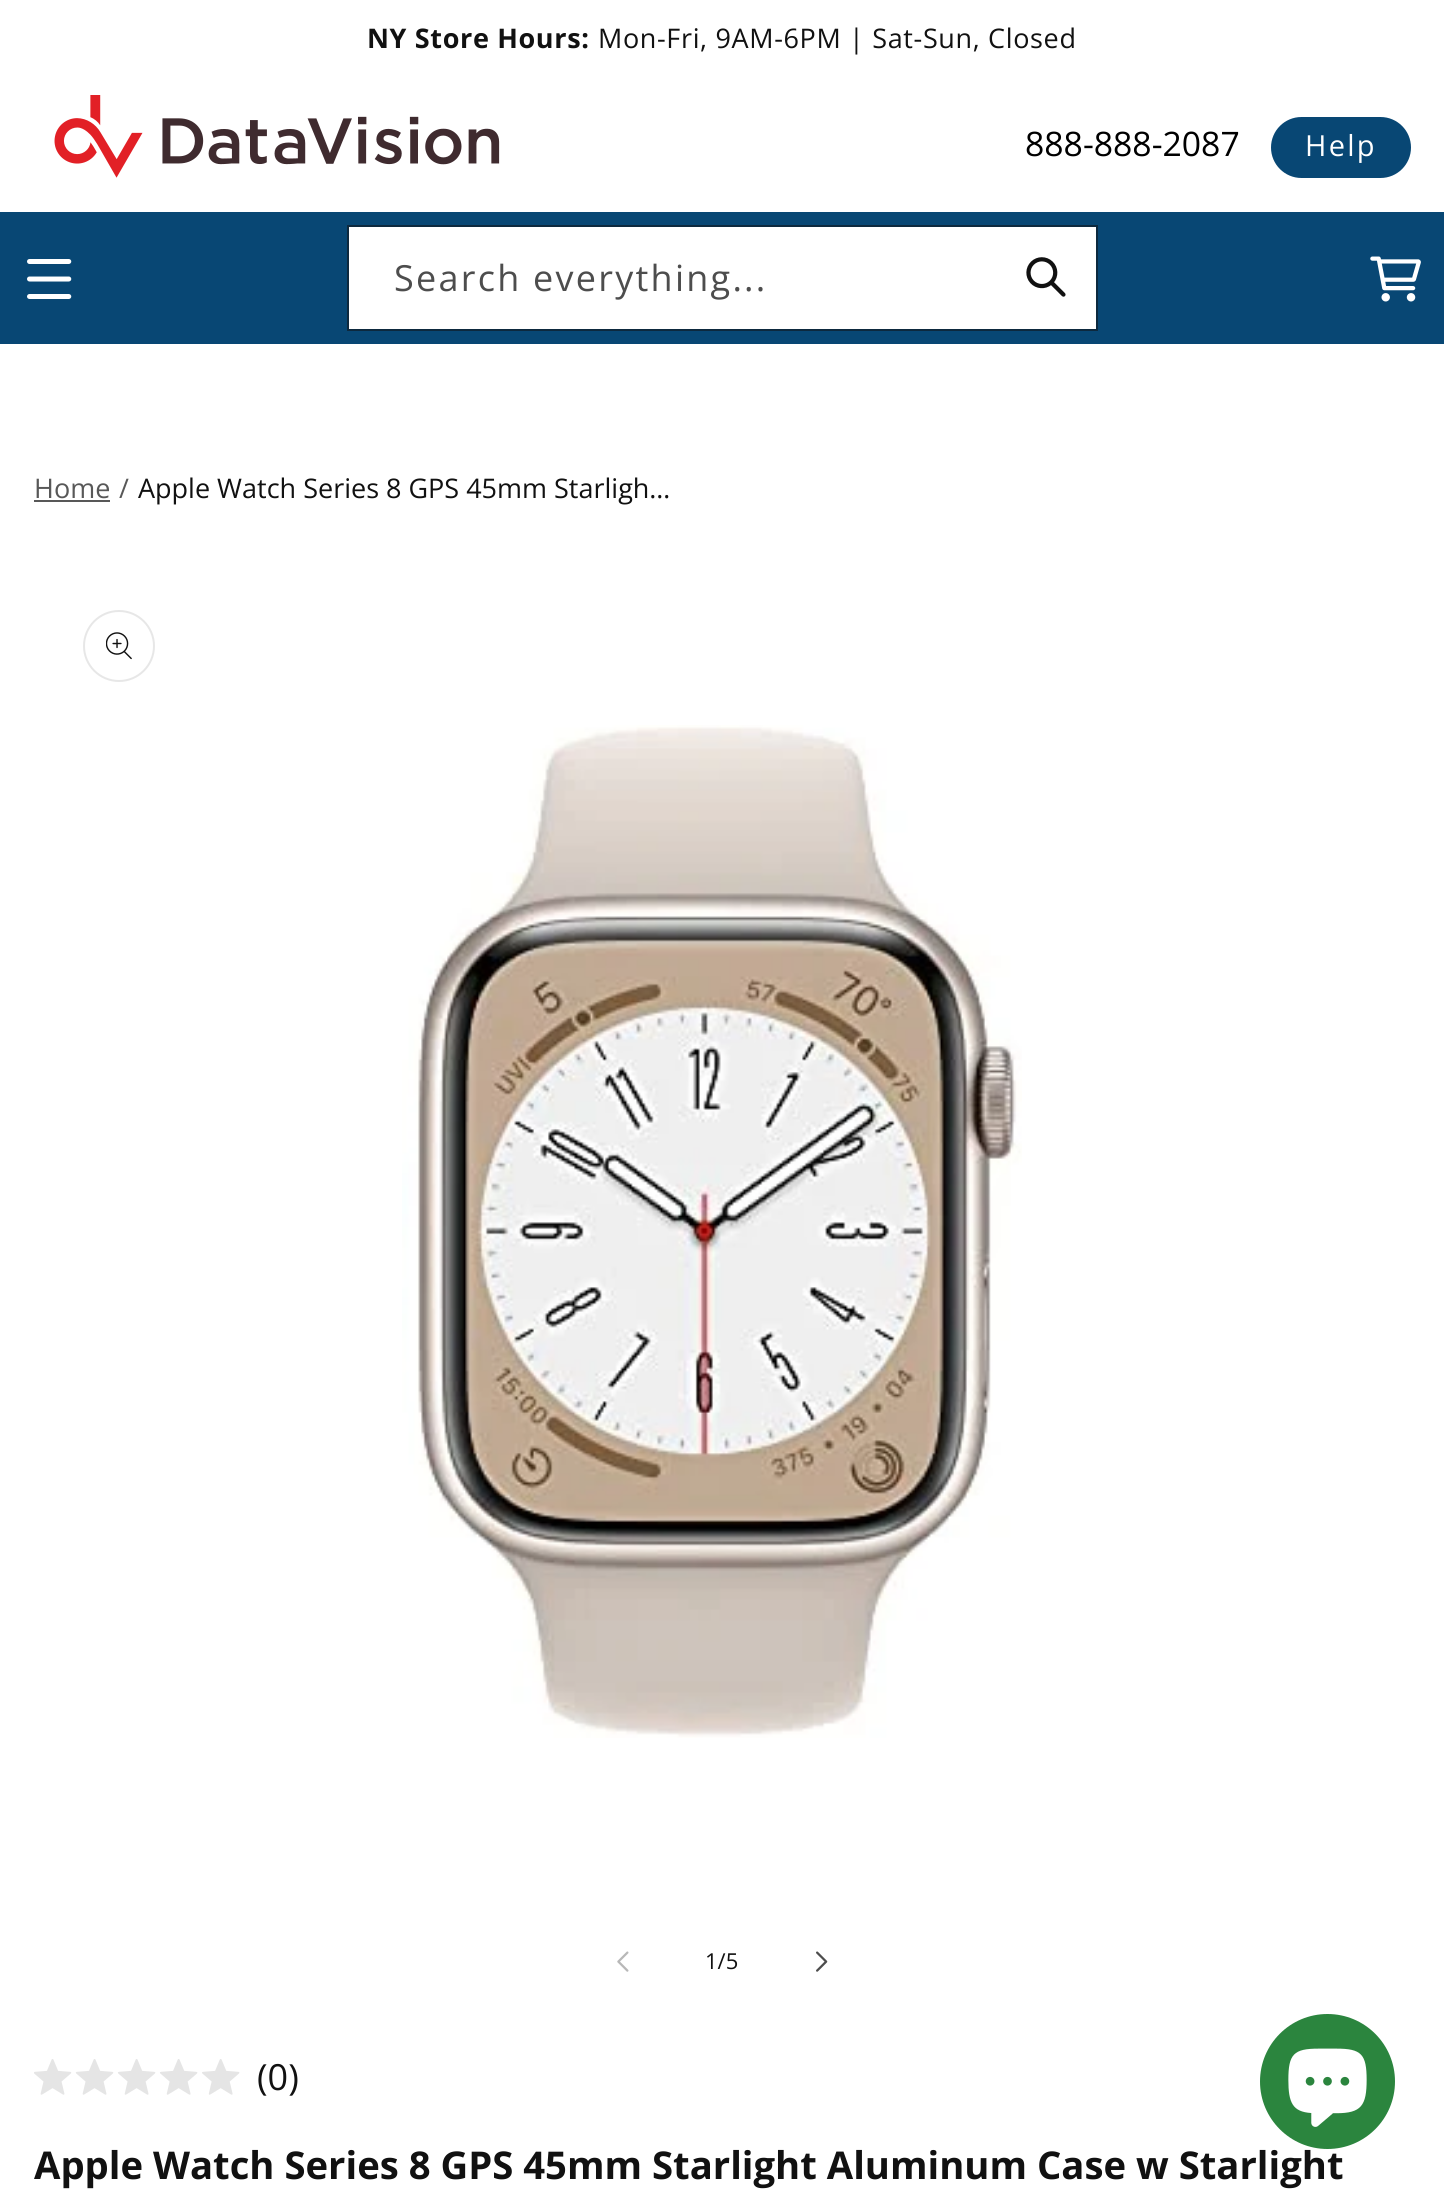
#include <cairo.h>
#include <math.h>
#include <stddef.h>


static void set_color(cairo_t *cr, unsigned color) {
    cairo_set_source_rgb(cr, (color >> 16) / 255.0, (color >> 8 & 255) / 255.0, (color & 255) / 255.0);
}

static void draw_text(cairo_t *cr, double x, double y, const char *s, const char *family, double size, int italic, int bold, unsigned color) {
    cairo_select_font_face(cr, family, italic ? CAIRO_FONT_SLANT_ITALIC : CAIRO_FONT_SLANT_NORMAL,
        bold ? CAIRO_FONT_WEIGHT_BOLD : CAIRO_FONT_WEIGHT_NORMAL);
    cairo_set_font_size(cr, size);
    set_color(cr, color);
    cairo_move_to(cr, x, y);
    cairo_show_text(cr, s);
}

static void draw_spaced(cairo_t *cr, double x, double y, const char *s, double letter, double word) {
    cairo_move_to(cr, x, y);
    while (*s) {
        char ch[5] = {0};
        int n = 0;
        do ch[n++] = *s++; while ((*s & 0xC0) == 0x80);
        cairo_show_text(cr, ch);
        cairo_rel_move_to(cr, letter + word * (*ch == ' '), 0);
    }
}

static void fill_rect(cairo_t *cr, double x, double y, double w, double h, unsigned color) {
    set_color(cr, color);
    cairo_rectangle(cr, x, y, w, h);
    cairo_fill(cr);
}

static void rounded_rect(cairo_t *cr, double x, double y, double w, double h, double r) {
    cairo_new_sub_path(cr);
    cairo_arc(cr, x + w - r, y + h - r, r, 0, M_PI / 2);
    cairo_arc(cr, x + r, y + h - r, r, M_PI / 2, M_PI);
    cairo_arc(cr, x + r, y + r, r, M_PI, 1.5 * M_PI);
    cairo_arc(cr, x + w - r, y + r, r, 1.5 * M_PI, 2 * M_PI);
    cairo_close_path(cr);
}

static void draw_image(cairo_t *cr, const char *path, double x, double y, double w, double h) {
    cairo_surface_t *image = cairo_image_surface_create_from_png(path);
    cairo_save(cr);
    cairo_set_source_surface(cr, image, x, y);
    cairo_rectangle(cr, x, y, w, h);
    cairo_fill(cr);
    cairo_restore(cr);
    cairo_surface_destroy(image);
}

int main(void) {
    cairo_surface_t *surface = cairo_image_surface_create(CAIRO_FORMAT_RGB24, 1444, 2196);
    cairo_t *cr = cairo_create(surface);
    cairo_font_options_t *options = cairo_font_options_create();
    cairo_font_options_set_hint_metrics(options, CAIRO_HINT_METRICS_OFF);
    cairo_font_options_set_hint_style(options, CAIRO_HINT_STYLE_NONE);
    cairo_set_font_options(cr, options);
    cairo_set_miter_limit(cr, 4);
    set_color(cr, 0xFFFFFF);
    cairo_paint(cr);
    cairo_select_font_face(cr, "Open Sans", CAIRO_FONT_SLANT_NORMAL, CAIRO_FONT_WEIGHT_BOLD);
    cairo_set_font_size(cr, 27);
    set_color(cr, 0x111111);
    draw_spaced(cr, 367, 48, "NY Store Hours:", 0.65, 0);
    cairo_select_font_face(cr, "Open Sans", CAIRO_FONT_SLANT_NORMAL, CAIRO_FONT_WEIGHT_NORMAL);
    draw_spaced(cr, 598, 48, "Mon-Fri, 9AM-6PM | Sat-Sun, Closed", 0.65, 0);
    draw_image(cr, "assets/img1.png", 54, 95, 446, 83);
    draw_text(cr, 1025, 156, "888-888-2087", "Open Sans", 33.75, 0, 0, 0x000000);
    set_color(cr, 0x084774);
    rounded_rect(cr, 1271, 117, 140, 61, 30.5);
    cairo_fill(cr);
    cairo_set_font_size(cr, 29);
    set_color(cr, 0xFFFFFF);
    draw_spaced(cr, 1305, 156, "Help", 2.25, 0);
    fill_rect(cr, 0, 212, 1444, 132, 0x084774);
    draw_image(cr, "assets/img2.png", 27, 259, 45, 40);
    fill_rect(cr, 349, 227, 747, 102, 0xFFFFFF);
    draw_image(cr, "assets/img3.png", 1026, 257, 40, 40);
    cairo_rectangle(cr, 348, 226, 749, 104);
    set_color(cr, 0x0D293E);
    cairo_stroke(cr);
    cairo_set_font_size(cr, 36);
    set_color(cr, 0x4D4D4D);
    draw_spaced(cr, 394, 291, "Search everything...", 2.25, 0);
    draw_image(cr, "assets/img4.png", 1370, 256, 51, 46);
    draw_text(cr, 34, 498, "Home", "Open Sans", 27, 0, 0, 0x585858);
    fill_rect(cr, 34, 500, 76, 2, 0x585858);
    draw_text(cr, 119, 498, "/", "Open Sans", 27, 0, 0, 0x585858);
    draw_text(cr, 138, 498, "Apple Watch Series 8 GPS 45mm Starligh…", "Open Sans", 27, 0, 0, 0x111111);
    cairo_new_path(cr);
    cairo_arc(cr, 119, 646, 35, 0, 2 * M_PI);
    set_color(cr, 0xE7E7E7);
    cairo_stroke(cr);
    draw_image(cr, "assets/img5.png", 106, 632, 26, 28);
    draw_image(cr, "assets/img6.png", 402, 725, 620, 1013);
    draw_image(cr, "assets/img7.png", 617, 1951, 12, 21);
    draw_text(cr, 705, 1969, "1/5", "Open Sans", 22, 0, 0, 0x111111);
    draw_image(cr, "assets/img8.png", 816, 1951, 12, 21);
    draw_image(cr, "assets/img9.png", 34, 2059, 206, 36);
    draw_text(cr, 257, 2090, "(0)", "Open Sans", 36, 0, 0, 0x111111);
    draw_text(cr, 34, 2179, "Apple Watch Series 8 GPS 45mm Starlight Aluminum Case w Starlight", "Open Sans", 38.25, 0, 1, 0x111111);
    set_color(cr, 0x2B853E);
    cairo_new_path(cr);
    cairo_arc(cr, 1327.5, 2081.5, 67.5, 0, 2 * M_PI);
    cairo_fill(cr);
    draw_image(cr, "assets/img10.png", 1288, 2048, 79, 79);
    cairo_surface_write_to_png(surface, "output.png");
    cairo_font_options_destroy(options);
    cairo_destroy(cr);
    cairo_surface_destroy(surface);
    return 0;
}
